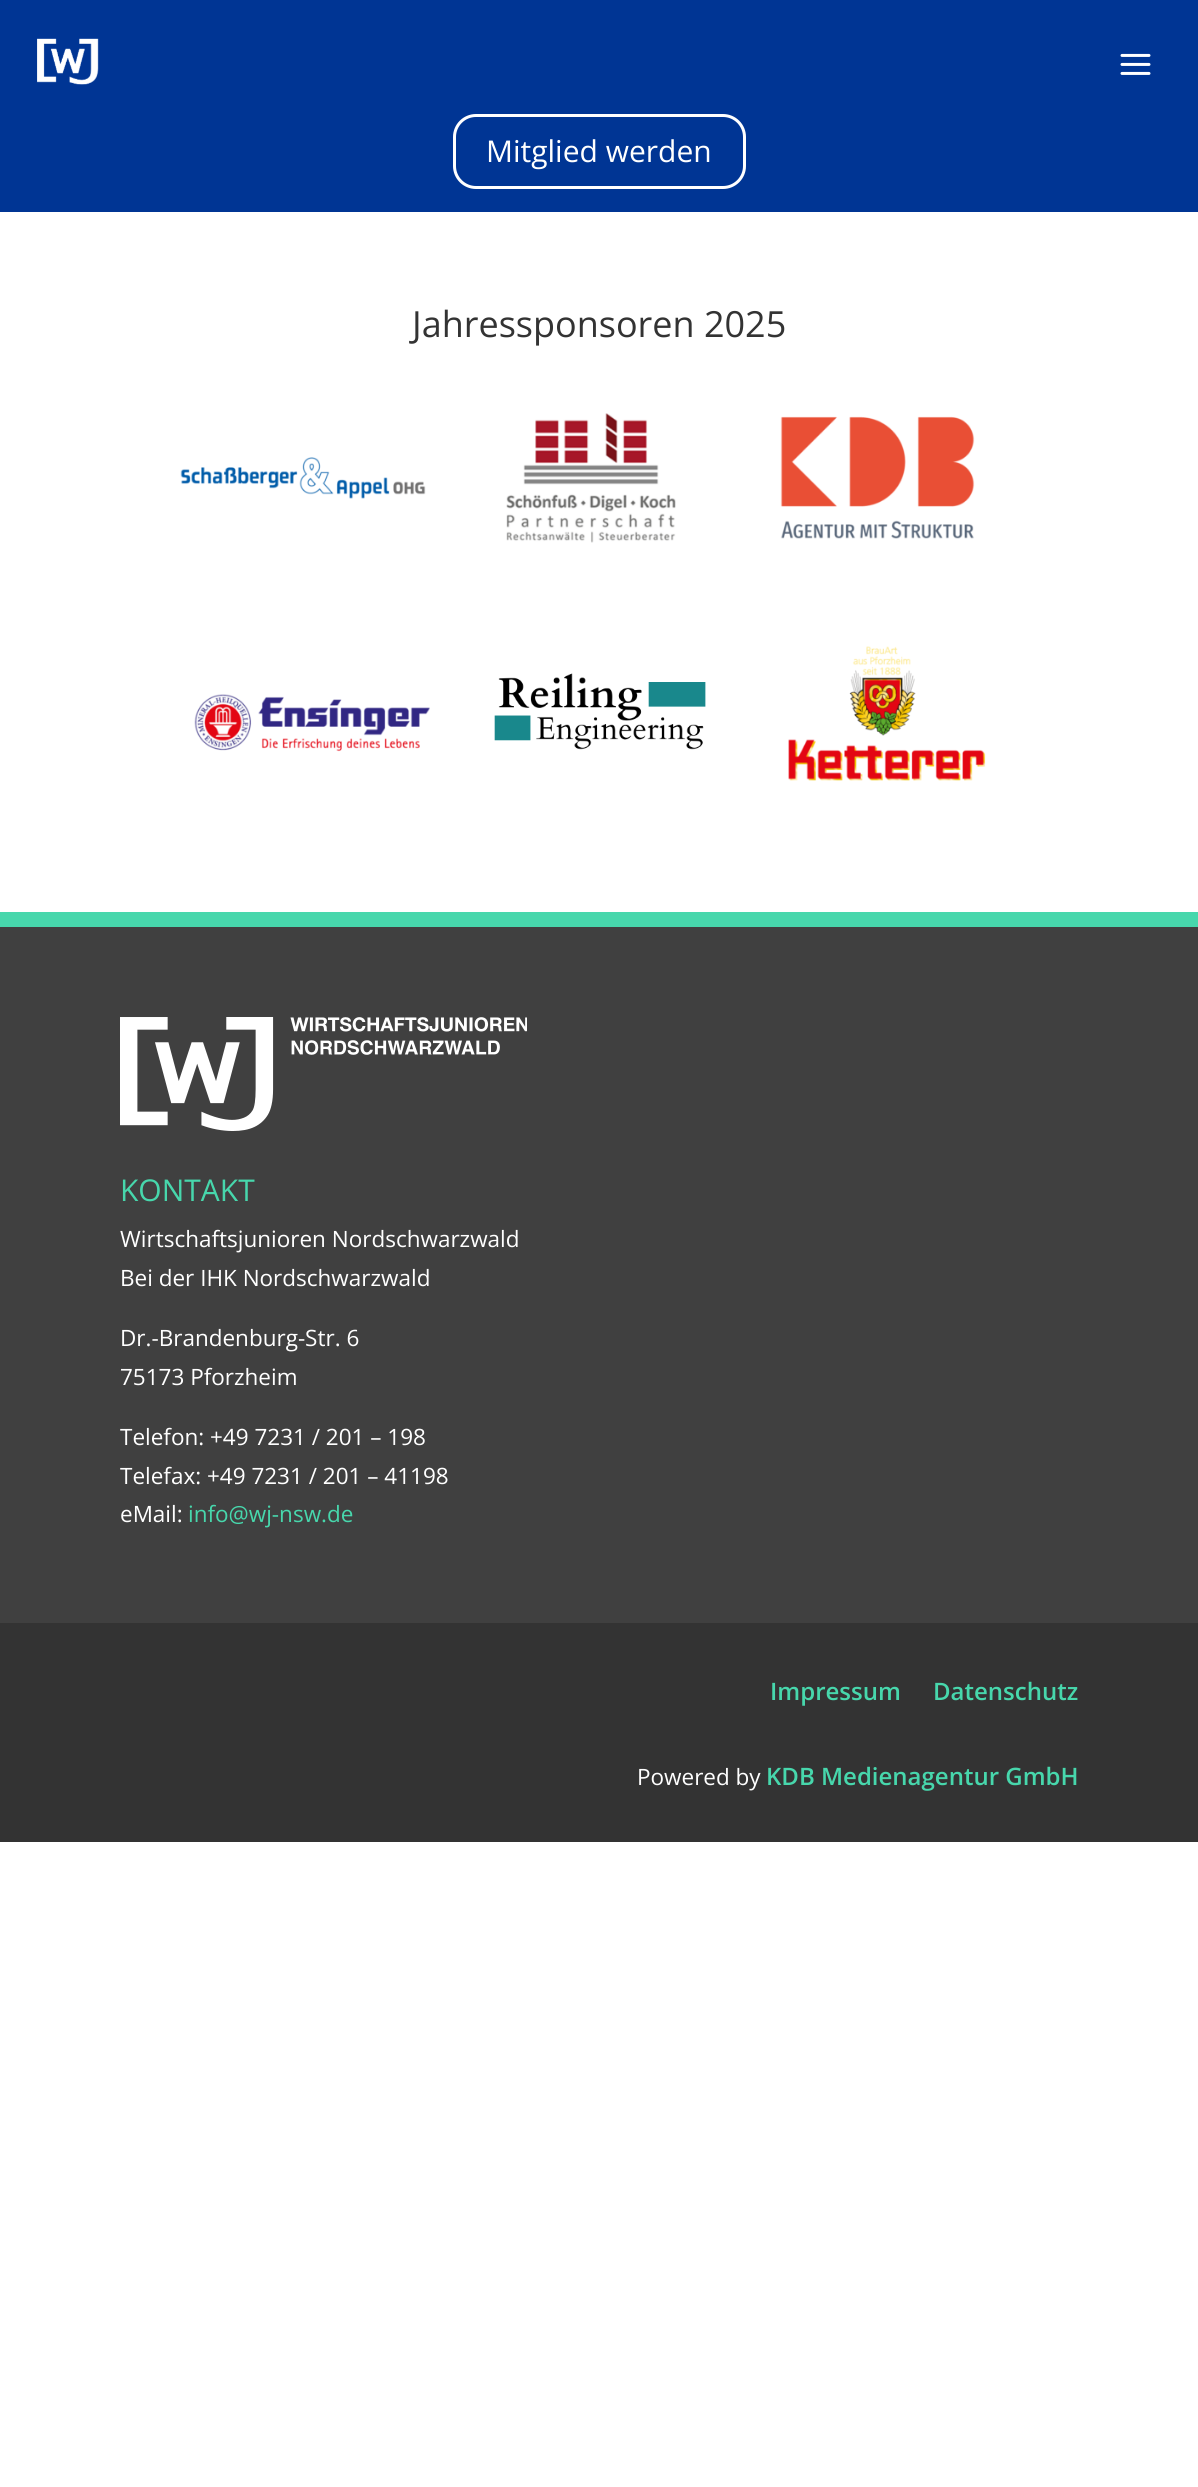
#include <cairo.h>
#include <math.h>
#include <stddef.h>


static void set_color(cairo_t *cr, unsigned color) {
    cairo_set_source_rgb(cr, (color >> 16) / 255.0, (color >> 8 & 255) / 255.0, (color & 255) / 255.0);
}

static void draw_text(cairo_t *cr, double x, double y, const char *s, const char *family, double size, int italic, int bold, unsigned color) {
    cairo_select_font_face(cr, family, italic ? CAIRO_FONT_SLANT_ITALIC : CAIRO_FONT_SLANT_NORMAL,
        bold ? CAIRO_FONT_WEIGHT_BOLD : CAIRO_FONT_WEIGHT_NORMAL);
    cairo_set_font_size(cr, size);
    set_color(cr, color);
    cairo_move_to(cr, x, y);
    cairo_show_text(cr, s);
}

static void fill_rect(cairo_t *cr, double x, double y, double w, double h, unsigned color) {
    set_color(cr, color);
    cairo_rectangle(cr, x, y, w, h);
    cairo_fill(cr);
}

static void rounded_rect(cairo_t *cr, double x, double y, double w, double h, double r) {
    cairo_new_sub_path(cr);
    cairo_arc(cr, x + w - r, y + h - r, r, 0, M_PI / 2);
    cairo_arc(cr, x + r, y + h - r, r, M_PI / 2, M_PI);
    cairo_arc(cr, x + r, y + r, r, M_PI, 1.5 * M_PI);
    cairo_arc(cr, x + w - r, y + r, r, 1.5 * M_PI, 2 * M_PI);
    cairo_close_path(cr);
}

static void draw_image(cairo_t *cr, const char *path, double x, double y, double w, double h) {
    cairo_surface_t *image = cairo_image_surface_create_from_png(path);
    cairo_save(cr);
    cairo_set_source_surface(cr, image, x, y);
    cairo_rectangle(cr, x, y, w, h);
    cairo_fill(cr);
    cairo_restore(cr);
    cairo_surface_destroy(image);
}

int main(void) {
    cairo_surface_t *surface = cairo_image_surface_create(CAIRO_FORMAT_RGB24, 1198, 2487);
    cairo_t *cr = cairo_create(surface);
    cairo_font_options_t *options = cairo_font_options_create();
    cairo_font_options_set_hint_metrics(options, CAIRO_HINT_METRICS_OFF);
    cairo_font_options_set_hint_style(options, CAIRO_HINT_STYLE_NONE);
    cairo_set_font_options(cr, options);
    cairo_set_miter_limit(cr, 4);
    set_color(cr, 0xFFFFFF);
    cairo_paint(cr);
    fill_rect(cr, 0, 0, 1198, 212, 0x003594);
    draw_image(cr, "assets/img1.png", 37, 38, 62, 47);
    draw_image(cr, "assets/img2.png", 1120, 53, 31, 22);
    rounded_rect(cr, 454.5, 115.5, 290, 72, 21.5);
    set_color(cr, 0xFFFFFF);
    cairo_set_line_width(cr, 3);
    cairo_stroke(cr);
    draw_text(cr, 486, 162, "Mitglied werden", "Open Sans", 30, 0, 0, 0xFFFFFF);
    draw_text(cr, 412, 337, "Jahressponsoren 2025", "Open Sans", 36, 0, 0, 0x333333);
    draw_image(cr, "assets/img3.png", 180, 457, 246, 42);
    draw_image(cr, "assets/img4.png", 506, 413, 170, 130);
    draw_image(cr, "assets/img5.png", 780, 416, 195, 123);
    draw_image(cr, "assets/img6.png", 194, 694, 236, 58);
    draw_image(cr, "assets/img7.png", 494, 673, 212, 77);
    draw_image(cr, "assets/img8.png", 788, 646, 198, 135);
    fill_rect(cr, 0, 927, 1198, 696, 0x404040);
    fill_rect(cr, 0, 912, 1198, 15, 0x47D7AC);
    draw_image(cr, "assets/img9.png", 120, 1017, 407, 114);
    draw_text(cr, 120, 1201, "KONTAKT", "Open Sans", 30, 0, 0, 0x47D7AC);
    draw_text(cr, 120, 1247, "Wirtschaftsjunioren Nordschwarzwald", "Open Sans", 22.5, 0, 0, 0xFFFFFF);
    draw_text(cr, 120, 1286, "Bei der IHK Nordschwarzwald", "Open Sans", 22.5, 0, 0, 0xFFFFFF);
    draw_text(cr, 120, 1346, "Dr.-Brandenburg-Str. 6", "Open Sans", 22.5, 0, 0, 0xFFFFFF);
    draw_text(cr, 120, 1385, "75173 Pforzheim", "Open Sans", 22.5, 0, 0, 0xFFFFFF);
    draw_text(cr, 120, 1445, "Telefon: +49 7231 / 201 – 198", "Open Sans", 22.5, 0, 0, 0xFFFFFF);
    draw_text(cr, 120, 1484, "Telefax: +49 7231 / 201 – 41198", "Open Sans", 22.5, 0, 0, 0xFFFFFF);
    draw_text(cr, 120, 1522, "eMail:", "Open Sans", 22.5, 0, 0, 0xFFFFFF);
    draw_text(cr, 188, 1522, "info@wj-nsw.de", "Open Sans", 22.5, 0, 0, 0x47D7AC);
    fill_rect(cr, 0, 1623, 1198, 219, 0x333333);
    draw_text(cr, 770, 1700, "Impressum", "Open Sans SemiBold", 24, 0, 0, 0x47D7AC);
    draw_text(cr, 933, 1700, "Datenschutz", "Open Sans SemiBold", 24, 0, 0, 0x47D7AC);
    draw_text(cr, 637, 1785, "Powered by", "Open Sans", 22.5, 0, 0, 0xFFFFFF);
    draw_text(cr, 766, 1785, "KDB Medienagentur GmbH", "Open Sans SemiBold", 24, 0, 0, 0x47D7AC);
    cairo_surface_write_to_png(surface, "output.png");
    cairo_font_options_destroy(options);
    cairo_destroy(cr);
    cairo_surface_destroy(surface);
    return 0;
}
